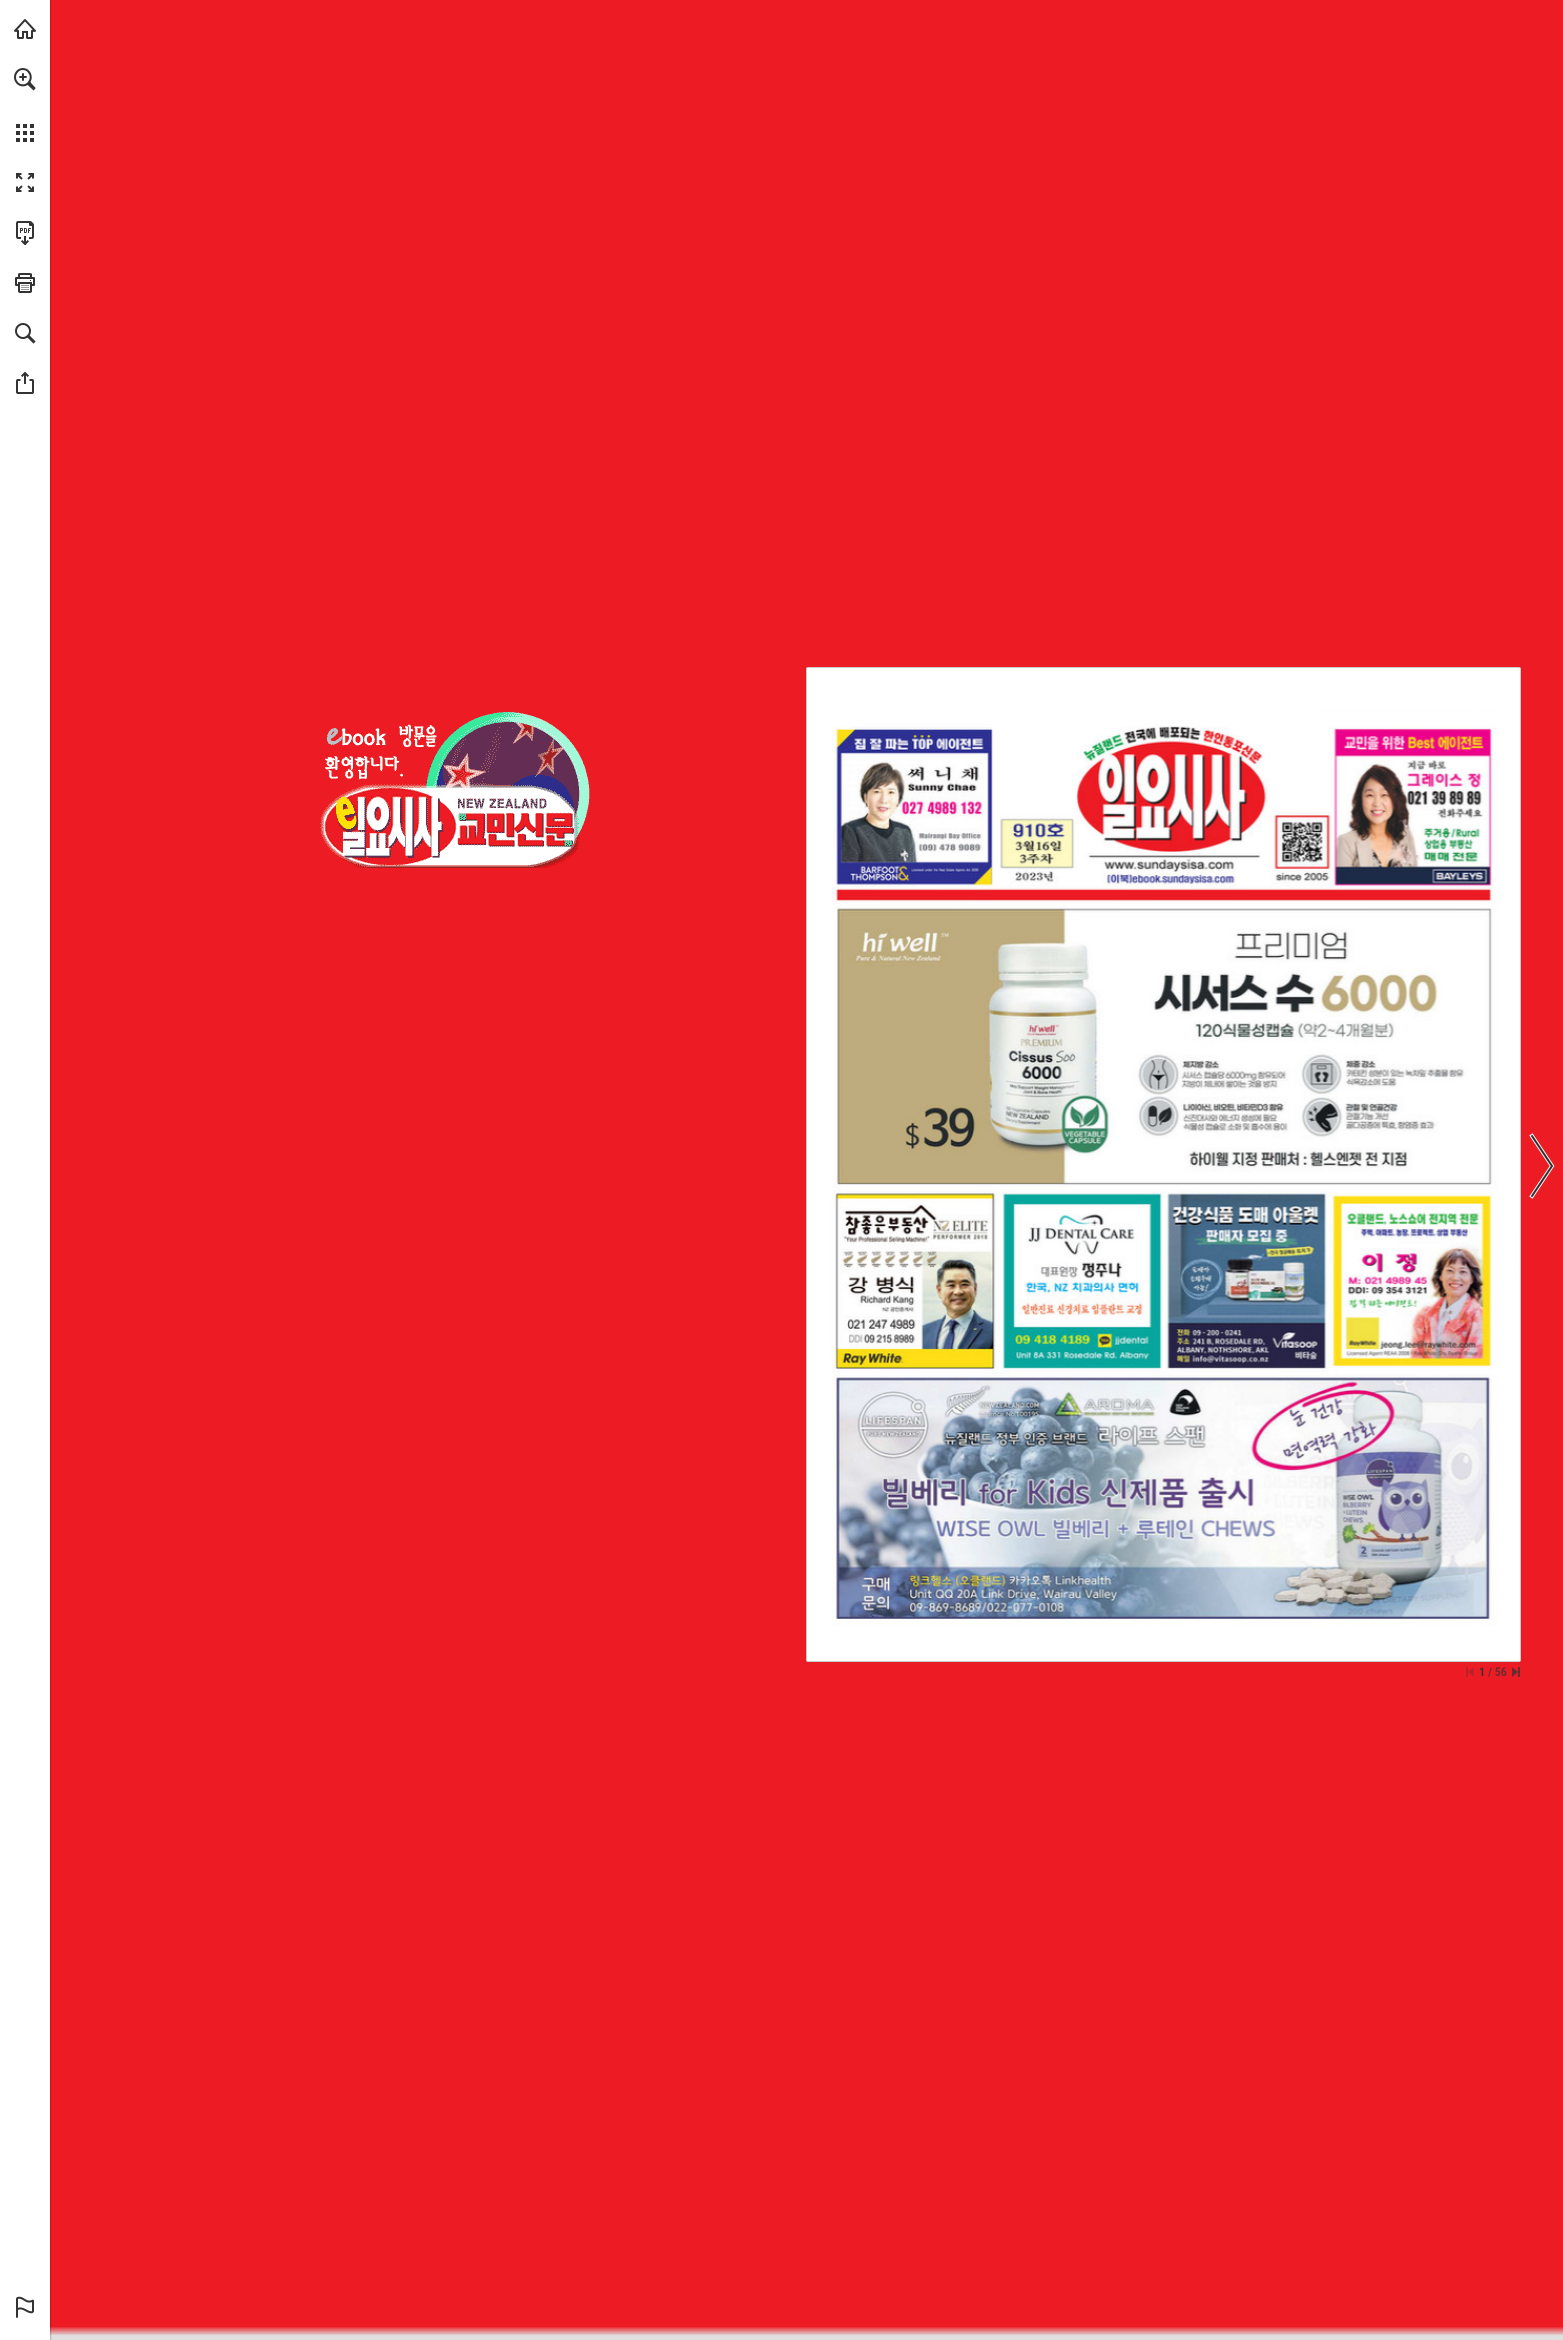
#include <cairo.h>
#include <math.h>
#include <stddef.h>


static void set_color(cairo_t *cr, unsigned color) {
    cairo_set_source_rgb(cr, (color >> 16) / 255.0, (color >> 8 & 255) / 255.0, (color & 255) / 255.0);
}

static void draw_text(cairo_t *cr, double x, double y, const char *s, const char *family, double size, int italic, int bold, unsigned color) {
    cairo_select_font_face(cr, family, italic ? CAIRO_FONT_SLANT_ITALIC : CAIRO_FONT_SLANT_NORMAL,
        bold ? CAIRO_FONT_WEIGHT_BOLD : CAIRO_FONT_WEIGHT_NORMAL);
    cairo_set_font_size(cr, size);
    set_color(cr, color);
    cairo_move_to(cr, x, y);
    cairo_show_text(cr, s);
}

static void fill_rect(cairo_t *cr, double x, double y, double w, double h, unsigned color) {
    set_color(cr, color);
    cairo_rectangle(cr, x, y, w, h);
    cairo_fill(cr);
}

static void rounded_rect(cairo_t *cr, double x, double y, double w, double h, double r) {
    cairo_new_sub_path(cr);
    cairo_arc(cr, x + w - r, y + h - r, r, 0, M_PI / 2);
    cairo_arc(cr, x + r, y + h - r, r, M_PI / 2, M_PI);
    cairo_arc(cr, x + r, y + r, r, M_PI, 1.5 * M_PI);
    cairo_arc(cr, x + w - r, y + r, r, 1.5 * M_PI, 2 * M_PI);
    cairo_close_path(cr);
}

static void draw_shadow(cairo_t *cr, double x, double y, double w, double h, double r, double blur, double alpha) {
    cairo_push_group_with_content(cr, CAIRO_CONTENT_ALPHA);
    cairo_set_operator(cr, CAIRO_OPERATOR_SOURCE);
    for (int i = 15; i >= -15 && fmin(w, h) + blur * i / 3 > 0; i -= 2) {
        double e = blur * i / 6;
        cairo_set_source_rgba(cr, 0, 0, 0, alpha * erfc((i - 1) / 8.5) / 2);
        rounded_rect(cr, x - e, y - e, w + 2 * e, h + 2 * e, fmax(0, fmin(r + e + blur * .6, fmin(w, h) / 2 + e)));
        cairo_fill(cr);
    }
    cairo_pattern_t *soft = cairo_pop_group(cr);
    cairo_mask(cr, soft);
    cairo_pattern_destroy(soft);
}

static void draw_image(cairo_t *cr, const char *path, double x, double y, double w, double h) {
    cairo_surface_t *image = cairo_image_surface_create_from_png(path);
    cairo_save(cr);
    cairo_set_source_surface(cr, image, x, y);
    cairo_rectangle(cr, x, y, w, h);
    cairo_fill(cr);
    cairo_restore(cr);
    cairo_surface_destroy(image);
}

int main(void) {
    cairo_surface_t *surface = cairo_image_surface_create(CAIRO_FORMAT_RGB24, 1563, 2340);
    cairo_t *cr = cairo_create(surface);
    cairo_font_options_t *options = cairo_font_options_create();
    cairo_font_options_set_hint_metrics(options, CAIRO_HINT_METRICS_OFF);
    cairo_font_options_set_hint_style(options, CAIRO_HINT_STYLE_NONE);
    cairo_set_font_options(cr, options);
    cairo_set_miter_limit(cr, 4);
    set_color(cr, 0xED1C24);
    cairo_paint(cr);
    draw_image(cr, "assets/img10.png", 50, 2327, 1513, 13);
    set_color(cr, 0x000000);
    draw_shadow(cr, 1, 0, 50, 2340, 0, 0.5, 0.2);
    fill_rect(cr, 0, 0, 50, 2340, 0xFFFFFF);
    draw_image(cr, "assets/img1.png", 14, 19, 22, 20);
    draw_image(cr, "assets/img2.png", 14, 68, 22, 23);
    draw_image(cr, "assets/img3.png", 16, 124, 18, 18);
    draw_image(cr, "assets/img4.png", 16, 173, 18, 19);
    draw_image(cr, "assets/img5.png", 16, 221, 18, 24);
    draw_image(cr, "assets/img6.png", 15, 273, 20, 20);
    draw_image(cr, "assets/img7.png", 15, 323, 21, 21);
    draw_image(cr, "assets/img8.png", 16, 372, 18, 22);
    draw_image(cr, "assets/img9.png", 16, 2296, 18, 22);
    set_color(cr, 0x121212);
    draw_shadow(cr, 805, 666, 717, 997, 3, 1, 0.05);
    set_color(cr, 0xFFFFFF);
    rounded_rect(cr, 806, 667, 715, 995, 2);
    cairo_fill(cr);
    rounded_rect(cr, 806.5, 667.5, 714, 994, 1.5);
    cairo_set_source_rgba(cr, 0, 0, 0, 0.2);
    cairo_set_line_width(cr, 1);
    cairo_stroke(cr);
    draw_image(cr, "assets/img11.png", 320, 712, 270, 156);
    draw_image(cr, "assets/img12.png", 807, 668, 713, 993);
    draw_image(cr, "assets/img13.png", 829, 712, 686, 914);
    draw_image(cr, "assets/img14.png", 1529, 1133, 26, 66);
    draw_image(cr, "assets/img15.png", 1466, 1667, 8, 10);
    draw_text(cr, 1479, 1676, "1", "Roboto Condensed", 12, 0, 1, 0x333333);
    draw_text(cr, 1488, 1676, "/ 56", "Roboto Condensed", 12, 0, 1, 0x6B2C2F);
    draw_image(cr, "assets/img16.png", 1512, 1667, 8, 10);
    cairo_surface_write_to_png(surface, "output.png");
    cairo_font_options_destroy(options);
    cairo_destroy(cr);
    cairo_surface_destroy(surface);
    return 0;
}
